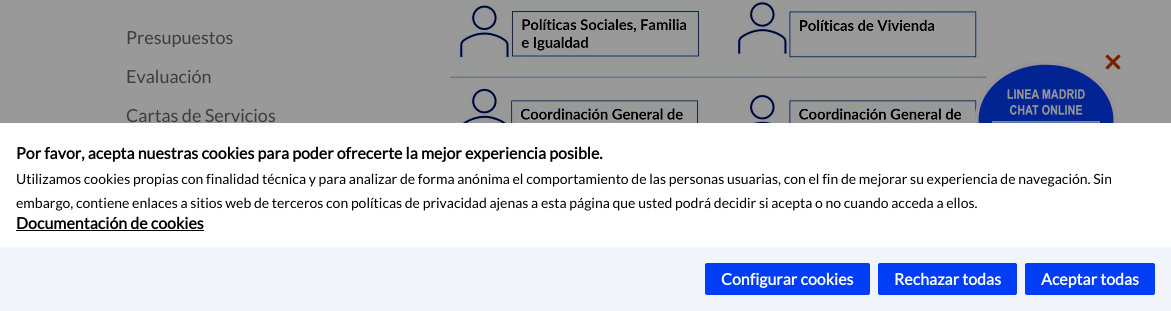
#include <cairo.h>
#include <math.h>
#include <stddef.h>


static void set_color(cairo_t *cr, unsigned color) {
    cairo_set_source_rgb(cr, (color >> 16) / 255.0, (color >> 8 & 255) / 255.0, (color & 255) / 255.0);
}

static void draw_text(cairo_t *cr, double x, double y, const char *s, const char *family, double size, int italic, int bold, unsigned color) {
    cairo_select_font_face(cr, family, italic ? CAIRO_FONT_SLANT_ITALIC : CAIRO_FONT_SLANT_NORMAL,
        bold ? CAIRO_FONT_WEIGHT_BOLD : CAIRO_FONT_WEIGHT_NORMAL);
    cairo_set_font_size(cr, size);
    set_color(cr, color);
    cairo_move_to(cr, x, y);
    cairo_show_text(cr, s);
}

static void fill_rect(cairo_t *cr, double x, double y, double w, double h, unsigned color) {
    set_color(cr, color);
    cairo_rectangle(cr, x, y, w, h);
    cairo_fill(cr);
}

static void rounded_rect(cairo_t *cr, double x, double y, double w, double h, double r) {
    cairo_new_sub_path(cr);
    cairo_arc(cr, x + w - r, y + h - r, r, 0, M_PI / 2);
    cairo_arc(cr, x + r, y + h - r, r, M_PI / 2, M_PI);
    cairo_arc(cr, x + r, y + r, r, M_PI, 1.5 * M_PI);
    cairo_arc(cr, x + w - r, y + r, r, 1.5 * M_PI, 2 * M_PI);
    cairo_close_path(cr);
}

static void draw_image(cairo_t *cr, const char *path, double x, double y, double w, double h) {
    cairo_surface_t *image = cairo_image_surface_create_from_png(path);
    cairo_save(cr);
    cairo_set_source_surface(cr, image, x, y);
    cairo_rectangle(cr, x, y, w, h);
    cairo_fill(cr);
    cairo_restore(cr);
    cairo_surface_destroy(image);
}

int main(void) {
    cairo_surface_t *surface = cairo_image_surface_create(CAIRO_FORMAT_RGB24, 1171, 311);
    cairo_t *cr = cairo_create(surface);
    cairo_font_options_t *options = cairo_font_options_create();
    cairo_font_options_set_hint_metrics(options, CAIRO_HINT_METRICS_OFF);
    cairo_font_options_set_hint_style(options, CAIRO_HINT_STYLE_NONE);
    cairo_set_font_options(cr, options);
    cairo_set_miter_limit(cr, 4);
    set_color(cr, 0x999999);
    cairo_paint(cr);
    draw_text(cr, 126, 44, "Presupuestos", "Lato", 18, 0, 0, 0x3D3D3D);
    draw_text(cr, 126, 83, "Evaluación", "Lato", 18, 0, 0, 0x3D3D3D);
    draw_text(cr, 126, 122, "Cartas de Servicios", "Lato", 18, 0, 0, 0x3D3D3D);
    draw_image(cr, "assets/img1.png", 447, 0, 540, 123);
    draw_image(cr, "assets/img3.png", 975, 61, 142, 62);
    draw_image(cr, "assets/img2.png", 1105, 54, 16, 16);
    fill_rect(cr, 0, 123, 1171, 124, 0xFFFFFF);
    draw_text(cr, 16, 159, "Por favor, acepta nuestras cookies para poder ofrecerte la mejor experiencia posible.", "Lato", 16, 0, 1, 0x000000);
    draw_text(cr, 16, 184, "Utilizamos cookies propias con finalidad técnica y para analizar de forma anónima el comportamiento de las personas usuarias, con el fin de mejorar su experiencia de navegación. Sin", "Lato", 14, 0, 0, 0x000000);
    draw_text(cr, 16, 208, "embargo, contiene enlaces a sitios web de terceros con políticas de privacidad ajenas a esta página que usted podrá decidir si acepta o no cuando acceda a ellos.", "Lato", 14, 0, 0, 0x000000);
    draw_text(cr, 16, 229, "Documentación de cookies", "Lato", 16, 0, 1, 0x000000);
    fill_rect(cr, 16, 230, 188, 1, 0x000000);
    fill_rect(cr, 0, 247, 1171, 64, 0xF1F5F9);
    set_color(cr, 0x003DF6);
    rounded_rect(cr, 705, 263, 165, 32, 2);
    cairo_fill(cr);
    draw_text(cr, 721, 285, "Configurar cookies", "Lato", 16, 0, 1, 0xFFFFFF);
    set_color(cr, 0x003DF6);
    rounded_rect(cr, 878, 263, 139, 32, 2);
    cairo_fill(cr);
    draw_text(cr, 894, 285, "Rechazar todas", "Lato", 16, 0, 1, 0xFFFFFF);
    set_color(cr, 0x003DF6);
    rounded_rect(cr, 1025, 263, 130, 32, 2);
    cairo_fill(cr);
    draw_text(cr, 1041, 285, "Aceptar todas", "Lato", 16, 0, 1, 0xFFFFFF);
    cairo_surface_write_to_png(surface, "output.png");
    cairo_font_options_destroy(options);
    cairo_destroy(cr);
    cairo_surface_destroy(surface);
    return 0;
}
